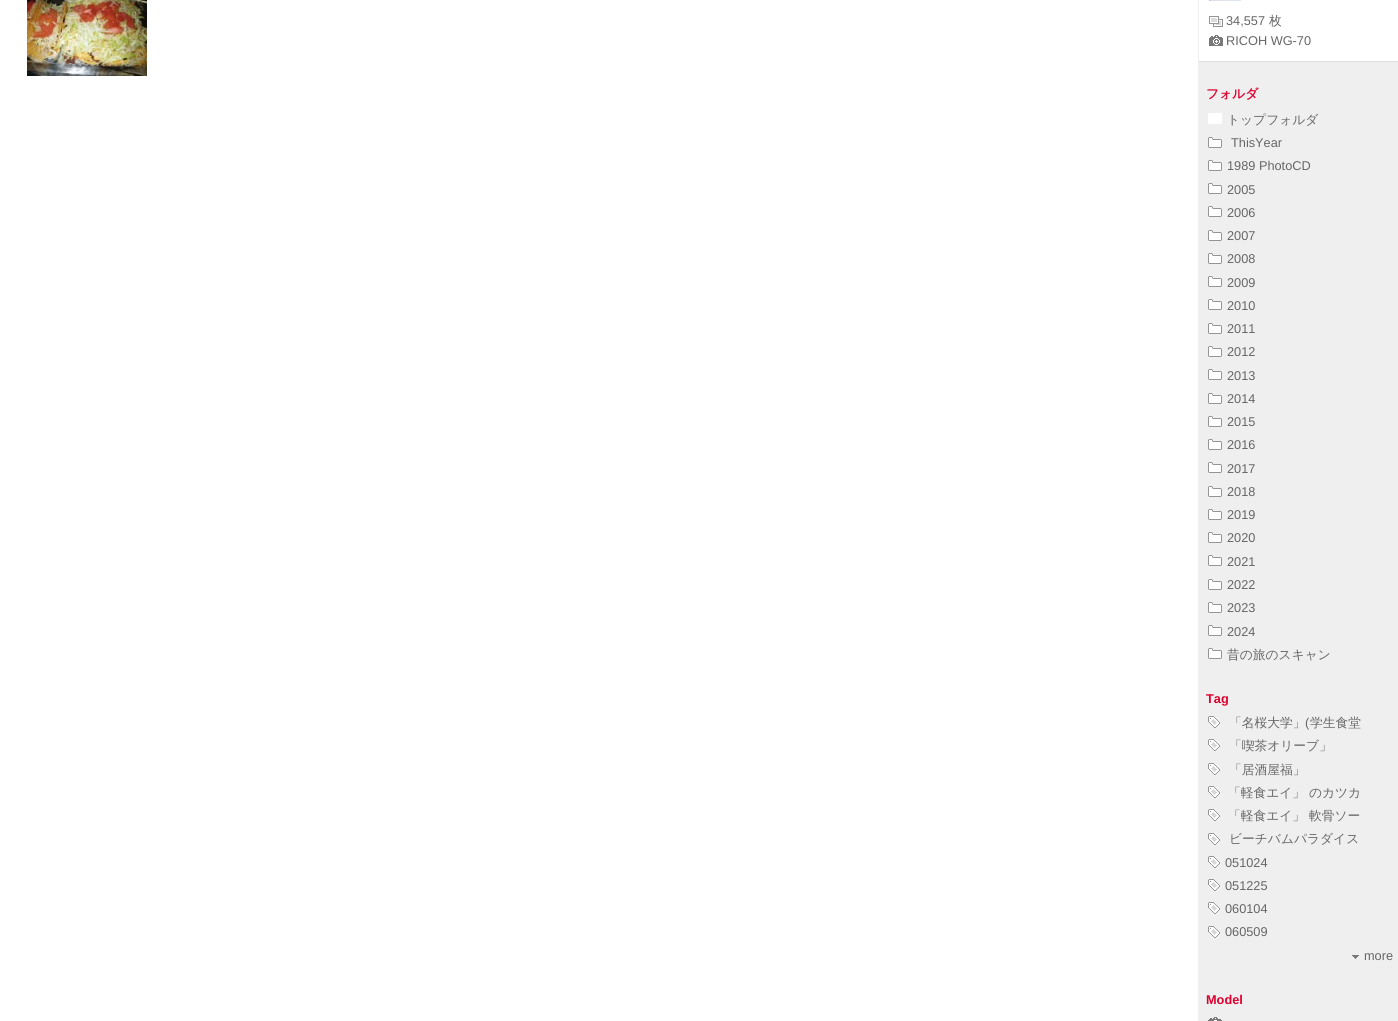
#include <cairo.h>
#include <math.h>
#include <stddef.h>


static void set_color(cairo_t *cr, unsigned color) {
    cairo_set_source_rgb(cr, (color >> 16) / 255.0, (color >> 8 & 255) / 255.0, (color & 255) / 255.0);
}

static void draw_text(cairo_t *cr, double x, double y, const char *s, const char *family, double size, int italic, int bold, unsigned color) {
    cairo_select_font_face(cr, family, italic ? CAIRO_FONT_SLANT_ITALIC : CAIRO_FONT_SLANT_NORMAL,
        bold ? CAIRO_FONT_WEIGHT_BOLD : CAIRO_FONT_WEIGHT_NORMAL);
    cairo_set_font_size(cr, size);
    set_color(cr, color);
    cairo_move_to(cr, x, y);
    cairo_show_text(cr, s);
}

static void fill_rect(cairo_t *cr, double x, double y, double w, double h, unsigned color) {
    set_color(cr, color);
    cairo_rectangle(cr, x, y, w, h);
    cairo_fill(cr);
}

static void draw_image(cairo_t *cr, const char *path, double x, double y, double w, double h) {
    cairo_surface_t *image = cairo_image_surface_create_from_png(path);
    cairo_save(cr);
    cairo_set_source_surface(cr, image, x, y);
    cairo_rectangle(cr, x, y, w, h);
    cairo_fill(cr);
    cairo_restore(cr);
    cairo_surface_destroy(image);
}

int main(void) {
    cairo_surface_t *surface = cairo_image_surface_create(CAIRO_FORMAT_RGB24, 1398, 1021);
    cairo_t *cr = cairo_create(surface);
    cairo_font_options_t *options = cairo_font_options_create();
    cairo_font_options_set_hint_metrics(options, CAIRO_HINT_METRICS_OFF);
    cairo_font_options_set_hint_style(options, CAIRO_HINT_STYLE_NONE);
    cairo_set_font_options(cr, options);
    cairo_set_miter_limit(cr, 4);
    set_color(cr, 0xFFFFFF);
    cairo_paint(cr);
    fill_rect(cr, 1198, 0, 200, 1021, 0xEFEFEF);
    draw_image(cr, "assets/img1.png", 27, 0, 120, 76);
    fill_rect(cr, 1199, 0, 199, 61, 0xFFFFFF);
    fill_rect(cr, 1199, 61, 199, 1, 0xDEDEDE);
    draw_image(cr, "assets/img2.png", 1209, 0, 32, 1);
    draw_image(cr, "assets/img3.png", 1209, 16, 14, 11);
    draw_text(cr, 1226, 25, "34,557", "Liberation Sans", 12.75, 0, 0, 0x666666);
    draw_text(cr, 1269, 25, "枚", "WenQuanYi Zen Hei Medium", 12.75, 0, 0, 0x666666);
    draw_image(cr, "assets/img4.png", 1209, 35, 14, 11);
    draw_text(cr, 1226, 45, "RICOH WG-70", "Liberation Sans", 12.75, 0, 0, 0x666666);
    draw_text(cr, 1206, 98, "フォルダ", "WenQuanYi Zen Hei", 12.75, 0, 1, 0xDE002F);
    draw_text(cr, 1227, 124, "トップフォルダ", "WenQuanYi Zen Hei Medium", 12.75, 0, 0, 0x666666);
    fill_rect(cr, 1208, 113, 14, 11, 0xFFFFFF);
    draw_image(cr, "assets/img5.png", 1208, 137, 14, 11);
    draw_text(cr, 1231, 147, "ThisYear", "Liberation Sans", 12.75, 0, 0, 0x666666);
    draw_image(cr, "assets/img5.png", 1208, 160, 14, 11);
    draw_text(cr, 1227, 170, "1989 PhotoCD", "Liberation Sans", 12.75, 0, 0, 0x666666);
    draw_image(cr, "assets/img5.png", 1208, 183, 14, 11);
    draw_text(cr, 1227, 194, "2005", "Liberation Sans", 12.75, 0, 0, 0x666666);
    draw_image(cr, "assets/img5.png", 1208, 206, 14, 11);
    draw_text(cr, 1227, 217, "2006", "Liberation Sans", 12.75, 0, 0, 0x666666);
    draw_image(cr, "assets/img5.png", 1208, 230, 14, 11);
    draw_text(cr, 1227, 240, "2007", "Liberation Sans", 12.75, 0, 0, 0x666666);
    draw_image(cr, "assets/img5.png", 1208, 253, 14, 11);
    draw_text(cr, 1227, 263, "2008", "Liberation Sans", 12.75, 0, 0, 0x666666);
    draw_image(cr, "assets/img5.png", 1208, 276, 14, 11);
    draw_text(cr, 1227, 287, "2009", "Liberation Sans", 12.75, 0, 0, 0x666666);
    draw_image(cr, "assets/img5.png", 1208, 299, 14, 11);
    draw_text(cr, 1227, 310, "2010", "Liberation Sans", 12.75, 0, 0, 0x666666);
    draw_image(cr, "assets/img5.png", 1208, 323, 14, 11);
    draw_text(cr, 1227, 333, "2011", "Liberation Sans", 12.75, 0, 0, 0x666666);
    draw_image(cr, "assets/img5.png", 1208, 346, 14, 11);
    draw_text(cr, 1227, 356, "2012", "Liberation Sans", 12.75, 0, 0, 0x666666);
    draw_image(cr, "assets/img5.png", 1208, 369, 14, 11);
    draw_text(cr, 1227, 380, "2013", "Liberation Sans", 12.75, 0, 0, 0x666666);
    draw_image(cr, "assets/img5.png", 1208, 393, 14, 11);
    draw_text(cr, 1227, 403, "2014", "Liberation Sans", 12.75, 0, 0, 0x666666);
    draw_image(cr, "assets/img5.png", 1208, 416, 14, 11);
    draw_text(cr, 1227, 426, "2015", "Liberation Sans", 12.75, 0, 0, 0x666666);
    draw_image(cr, "assets/img5.png", 1208, 439, 14, 11);
    draw_text(cr, 1227, 449, "2016", "Liberation Sans", 12.75, 0, 0, 0x666666);
    draw_image(cr, "assets/img5.png", 1208, 462, 14, 11);
    draw_text(cr, 1227, 473, "2017", "Liberation Sans", 12.75, 0, 0, 0x666666);
    draw_image(cr, "assets/img5.png", 1208, 486, 14, 11);
    draw_text(cr, 1227, 496, "2018", "Liberation Sans", 12.75, 0, 0, 0x666666);
    draw_image(cr, "assets/img5.png", 1208, 509, 14, 11);
    draw_text(cr, 1227, 519, "2019", "Liberation Sans", 12.75, 0, 0, 0x666666);
    draw_image(cr, "assets/img5.png", 1208, 532, 14, 11);
    draw_text(cr, 1227, 542, "2020", "Liberation Sans", 12.75, 0, 0, 0x666666);
    draw_image(cr, "assets/img5.png", 1208, 555, 14, 11);
    draw_text(cr, 1227, 566, "2021", "Liberation Sans", 12.75, 0, 0, 0x666666);
    draw_image(cr, "assets/img5.png", 1208, 579, 14, 11);
    draw_text(cr, 1227, 589, "2022", "Liberation Sans", 12.75, 0, 0, 0x666666);
    draw_image(cr, "assets/img5.png", 1208, 602, 14, 11);
    draw_text(cr, 1227, 612, "2023", "Liberation Sans", 12.75, 0, 0, 0x666666);
    draw_image(cr, "assets/img5.png", 1208, 625, 14, 11);
    draw_text(cr, 1227, 636, "2024", "Liberation Sans", 12.75, 0, 0, 0x666666);
    draw_image(cr, "assets/img5.png", 1208, 648, 14, 11);
    draw_text(cr, 1227, 659, "昔の旅のスキャン", "WenQuanYi Zen Hei Medium", 12.75, 0, 0, 0x666666);
    draw_text(cr, 1206, 703, "Tag", "Liberation Sans", 12.75, 0, 1, 0xDE002F);
    draw_image(cr, "assets/img6.png", 1208, 716, 12, 12);
    draw_text(cr, 1229, 727, "「名桜大学」", "WenQuanYi Zen Hei Medium", 12.75, 0, 0, 0x666666);
    draw_text(cr, 1305, 727, "(", "Liberation Sans", 12.75, 0, 0, 0x666666);
    draw_text(cr, 1310, 727, "学生食堂", "WenQuanYi Zen Hei Medium", 12.75, 0, 0, 0x666666);
    draw_image(cr, "assets/img6.png", 1208, 739, 12, 12);
    draw_text(cr, 1229, 750, "「喫茶オリーブ」", "WenQuanYi Zen Hei Medium", 12.75, 0, 0, 0x666666);
    draw_image(cr, "assets/img6.png", 1208, 763, 12, 12);
    draw_text(cr, 1229, 774, "「居酒屋福」", "WenQuanYi Zen Hei Medium", 12.75, 0, 0, 0x666666);
    draw_image(cr, "assets/img6.png", 1208, 786, 12, 12);
    draw_text(cr, 1228, 797, "「軽食エイ」 のカツカ", "WenQuanYi Zen Hei Medium", 12.75, 0, 0, 0x666666);
    draw_image(cr, "assets/img6.png", 1208, 809, 12, 12);
    draw_text(cr, 1228, 820, "「軽食エイ」 軟骨ソー", "WenQuanYi Zen Hei Medium", 12.75, 0, 0, 0x666666);
    draw_image(cr, "assets/img6.png", 1208, 833, 12, 12);
    draw_text(cr, 1229, 843, "ビーチバムパラダイス", "WenQuanYi Zen Hei Medium", 12.75, 0, 0, 0x666666);
    draw_image(cr, "assets/img6.png", 1208, 856, 12, 12);
    draw_text(cr, 1225, 867, "051024", "Liberation Sans", 12.75, 0, 0, 0x666666);
    draw_image(cr, "assets/img6.png", 1208, 879, 12, 12);
    draw_text(cr, 1225, 890, "051225", "Liberation Sans", 12.75, 0, 0, 0x666666);
    draw_image(cr, "assets/img6.png", 1208, 902, 12, 12);
    draw_text(cr, 1225, 913, "060104", "Liberation Sans", 12.75, 0, 0, 0x666666);
    draw_image(cr, "assets/img6.png", 1208, 926, 12, 12);
    draw_text(cr, 1225, 936, "060509", "Liberation Sans", 12.75, 0, 0, 0x666666);
    draw_image(cr, "assets/img7.png", 1352, 955, 7, 4);
    draw_text(cr, 1364, 960, "more", "Liberation Sans", 12.75, 0, 0, 0x666666);
    draw_text(cr, 1206, 1004, "Model", "Liberation Sans", 12.75, 0, 1, 0xDE002F);
    draw_image(cr, "assets/img8.png", 1208, 1017, 14, 4);
    cairo_surface_write_to_png(surface, "output.png");
    cairo_font_options_destroy(options);
    cairo_destroy(cr);
    cairo_surface_destroy(surface);
    return 0;
}
